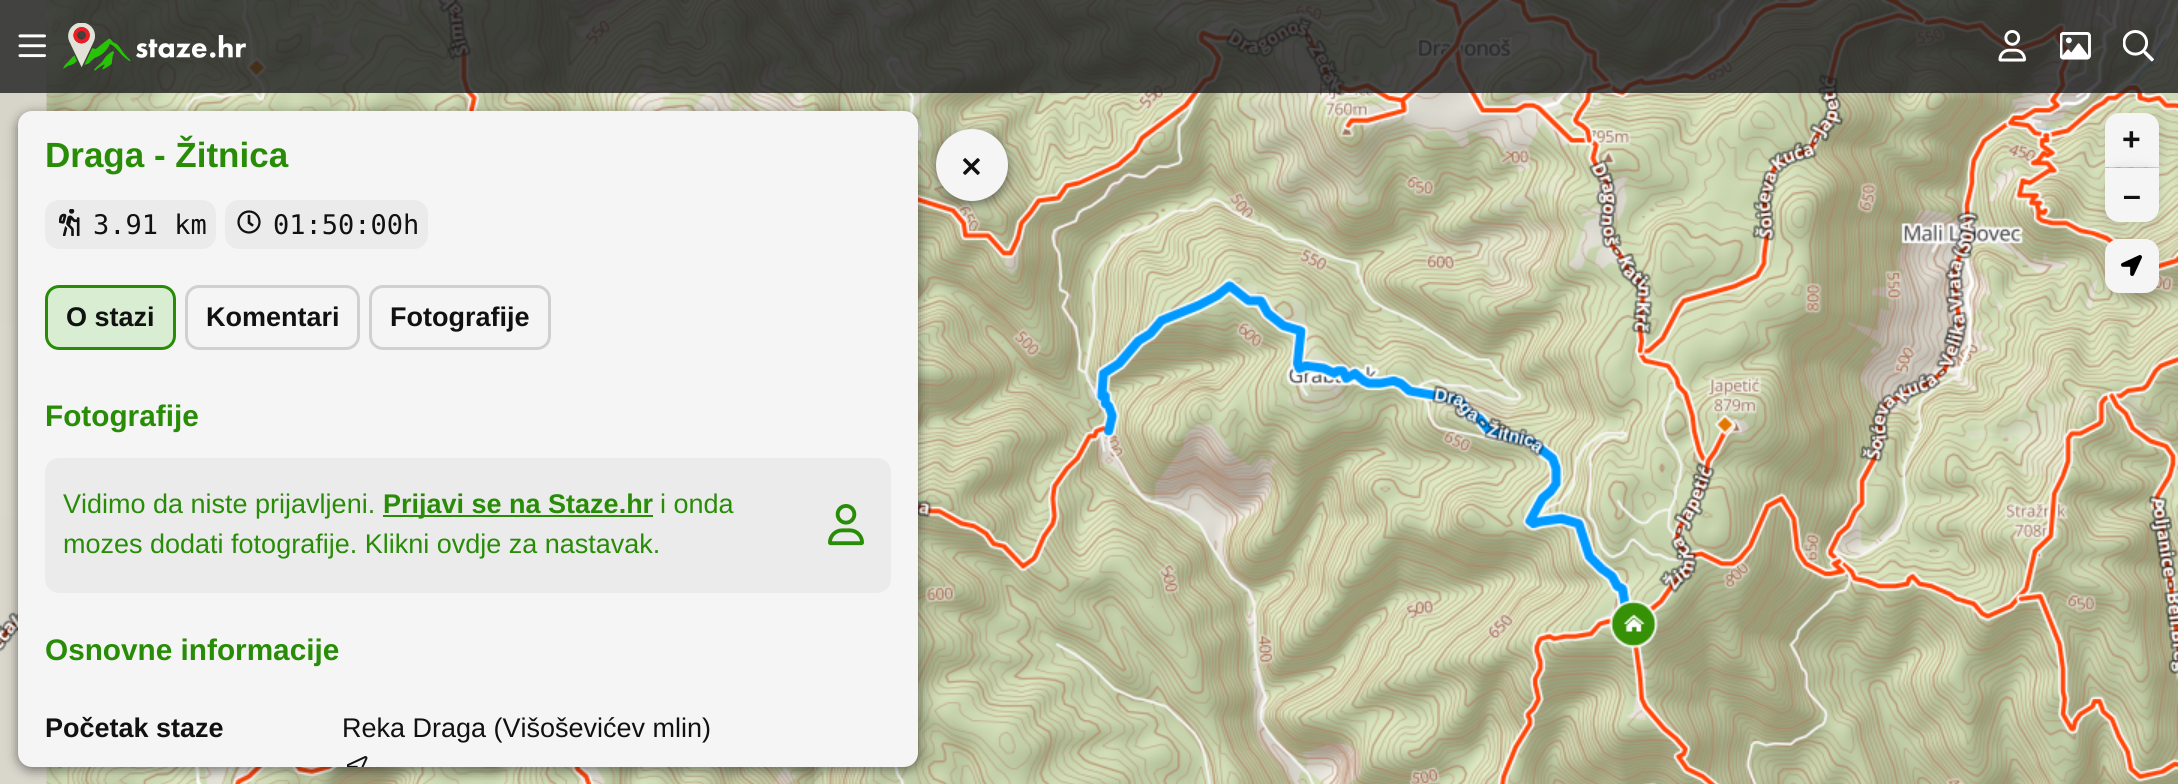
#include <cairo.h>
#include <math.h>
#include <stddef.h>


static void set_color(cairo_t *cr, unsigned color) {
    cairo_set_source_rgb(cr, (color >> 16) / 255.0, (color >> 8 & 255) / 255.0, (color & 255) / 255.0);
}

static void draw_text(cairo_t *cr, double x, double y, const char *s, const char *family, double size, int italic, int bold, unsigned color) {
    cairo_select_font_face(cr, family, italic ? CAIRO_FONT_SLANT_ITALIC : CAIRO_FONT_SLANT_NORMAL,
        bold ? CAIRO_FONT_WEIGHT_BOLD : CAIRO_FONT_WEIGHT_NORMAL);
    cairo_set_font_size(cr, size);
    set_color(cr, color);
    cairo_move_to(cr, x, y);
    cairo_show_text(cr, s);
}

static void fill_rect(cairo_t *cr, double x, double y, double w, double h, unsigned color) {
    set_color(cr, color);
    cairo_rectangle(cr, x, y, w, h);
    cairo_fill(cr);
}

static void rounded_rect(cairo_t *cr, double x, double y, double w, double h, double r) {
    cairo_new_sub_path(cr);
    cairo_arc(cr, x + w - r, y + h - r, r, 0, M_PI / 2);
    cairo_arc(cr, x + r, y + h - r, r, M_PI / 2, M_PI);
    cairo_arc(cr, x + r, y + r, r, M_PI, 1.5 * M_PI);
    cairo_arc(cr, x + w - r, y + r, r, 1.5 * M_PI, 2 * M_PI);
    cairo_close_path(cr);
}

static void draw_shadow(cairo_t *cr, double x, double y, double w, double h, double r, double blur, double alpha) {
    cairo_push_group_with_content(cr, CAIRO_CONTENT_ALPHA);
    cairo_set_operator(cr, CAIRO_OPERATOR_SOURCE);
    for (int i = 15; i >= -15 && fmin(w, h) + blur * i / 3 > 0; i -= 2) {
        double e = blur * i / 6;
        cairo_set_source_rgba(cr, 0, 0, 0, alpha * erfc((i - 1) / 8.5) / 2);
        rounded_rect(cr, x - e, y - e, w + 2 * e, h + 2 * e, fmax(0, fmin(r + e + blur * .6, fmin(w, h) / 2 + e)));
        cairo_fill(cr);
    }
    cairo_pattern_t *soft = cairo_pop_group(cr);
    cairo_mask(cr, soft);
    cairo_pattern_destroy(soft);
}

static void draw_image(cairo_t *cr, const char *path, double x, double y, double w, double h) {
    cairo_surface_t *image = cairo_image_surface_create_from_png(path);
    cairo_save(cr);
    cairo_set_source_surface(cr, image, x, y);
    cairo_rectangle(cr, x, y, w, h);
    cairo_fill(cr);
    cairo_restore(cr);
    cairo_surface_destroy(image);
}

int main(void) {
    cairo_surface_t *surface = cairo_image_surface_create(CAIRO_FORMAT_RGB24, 2178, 784);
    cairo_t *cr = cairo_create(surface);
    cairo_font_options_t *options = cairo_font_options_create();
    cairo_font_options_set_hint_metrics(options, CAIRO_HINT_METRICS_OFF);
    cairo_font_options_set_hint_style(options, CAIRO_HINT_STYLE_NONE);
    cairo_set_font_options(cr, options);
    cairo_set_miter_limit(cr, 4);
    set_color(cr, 0xFFFFFF);
    cairo_paint(cr);
    draw_image(cr, "assets/img11.png", 0, 0, 2178, 784);
    set_color(cr, 0x000000);
    draw_shadow(cr, 2105, 116, 54, 54, 14, 7.5, 0.15);
    cairo_set_source_rgba(cr, 0.114, 0.114, 0.122, 0.8);
    cairo_rectangle(cr, 0, 0, 2178, 93);
    cairo_fill(cr);
    draw_image(cr, "assets/img1.png", 18, 34, 28, 24);
    draw_image(cr, "assets/img2.png", 63, 23, 183, 48);
    draw_image(cr, "assets/img3.png", 1998, 30, 28, 32);
    draw_image(cr, "assets/img4.png", 2060, 32, 31, 28);
    draw_image(cr, "assets/img5.png", 2123, 30, 31, 32);
    set_color(cr, 0x000000);
    draw_shadow(cr, 18, 114, 900, 656, 14, 6, 0.5);
    set_color(cr, 0xF5F5F5);
    rounded_rect(cr, 18, 111, 900, 656, 14);
    cairo_fill(cr);
    draw_text(cr, 45, 167, "Draga - Žitnica", "Liberation Sans", 35, 0, 1, 0x288C07);
    set_color(cr, 0xEBEBEB);
    rounded_rect(cr, 45, 200, 171, 49, 14);
    cairo_fill(cr);
    draw_image(cr, "assets/img6.png", 59, 209, 21, 27);
    draw_text(cr, 93, 234, "3.91 km", "DejaVu Sans Mono", 27, 0, 0, 0x111111);
    set_color(cr, 0xEBEBEB);
    rounded_rect(cr, 225, 200, 203, 49, 14);
    cairo_fill(cr);
    draw_image(cr, "assets/img7.png", 237, 210, 24, 24);
    draw_text(cr, 273, 234, "01:50:00h", "DejaVu Sans Mono", 27, 0, 0, 0x111111);
    set_color(cr, 0xD8EDD2);
    rounded_rect(cr, 46.5, 286.5, 128, 62, 12.5);
    cairo_fill_preserve(cr);
    set_color(cr, 0x288C07);
    cairo_set_line_width(cr, 3);
    cairo_stroke(cr);
    draw_text(cr, 66, 326, "O stazi", "Liberation Sans", 27, 0, 1, 0x111111);
    rounded_rect(cr, 186.5, 286.5, 172, 62, 12.5);
    set_color(cr, 0xD0D0D0);
    cairo_stroke(cr);
    draw_text(cr, 206, 326, "Komentari", "Liberation Sans", 27, 0, 1, 0x111111);
    rounded_rect(cr, 370.5, 286.5, 179, 62, 12.5);
    set_color(cr, 0xD0D0D0);
    cairo_stroke(cr);
    draw_text(cr, 390, 326, "Fotografije", "Liberation Sans", 27, 0, 1, 0x111111);
    draw_text(cr, 45, 426, "Fotografije", "Liberation Sans", 29.75, 0, 1, 0x288C07);
    set_color(cr, 0xEBEBEB);
    rounded_rect(cr, 45, 458, 846, 135, 14);
    cairo_fill(cr);
    draw_text(cr, 63, 513, "Vidimo da niste prijavljeni.", "Liberation Sans", 27, 0, 0, 0x288C07);
    fill_rect(cr, 383, 515, 270, 2, 0x288C07);
    draw_text(cr, 383, 513, "Prijavi se na Staze.hr", "Liberation Sans", 27, 0, 1, 0x288C07);
    draw_text(cr, 660, 513, "i onda", "Liberation Sans", 27, 0, 0, 0x288C07);
    draw_text(cr, 63, 553, "mozes dodati fotografije. Klikni ovdje za nastavak.", "Liberation Sans", 27, 0, 0, 0x288C07);
    draw_image(cr, "assets/img8.png", 828, 504, 36, 42);
    draw_text(cr, 45, 660, "Osnovne informacije", "Liberation Sans", 29.75, 0, 1, 0x288C07);
    draw_text(cr, 45, 737, "Početak staze", "Liberation Sans", 27, 0, 1, 0x111111);
    draw_text(cr, 342, 737, "Reka Draga (Višoševićev mlin)", "Liberation Sans", 27, 0, 0, 0x111111);
    draw_image(cr, "assets/img9.png", 347, 756, 21, 11);
    set_color(cr, 0x000000);
    draw_shadow(cr, 936, 132, 72, 72, 36, 6, 0.5);
    set_color(cr, 0xF5F5F5);
    cairo_arc(cr, 972, 165, 36, 0, 2 * M_PI);
    cairo_fill(cr);
    draw_image(cr, "assets/img10.png", 963, 158, 17, 17);
    cairo_new_path(cr);
    cairo_move_to(cr, 2119, 113);
    cairo_line_to(cr, 2145, 113);
    cairo_curve_to(cr, 2152.5, 113, 2159, 119.5, 2159, 127);
    cairo_line_to(cr, 2159, 167);
    cairo_line_to(cr, 2105, 167);
    cairo_line_to(cr, 2105, 127);
    cairo_curve_to(cr, 2105, 119.5, 2111.5, 113, 2119, 113);
    cairo_close_path(cr);
    cairo_fill(cr);
    set_color(cr, 0x000000);
    draw_shadow(cr, 2105, 171, 54, 54, 14, 7.5, 0.15);
    draw_text(cr, 2122, 150, "+", "Liberation Sans", 32, 0, 1, 0x111111);
    set_color(cr, 0xF5F5F5);
    cairo_new_path(cr);
    cairo_move_to(cr, 2105, 168);
    cairo_line_to(cr, 2159, 168);
    cairo_line_to(cr, 2159, 208);
    cairo_curve_to(cr, 2159, 215.5, 2152.5, 222, 2145, 222);
    cairo_line_to(cr, 2119, 222);
    cairo_curve_to(cr, 2111.5, 222, 2105, 215.5, 2105, 208);
    cairo_close_path(cr);
    cairo_fill(cr);
    draw_text(cr, 2123, 206, "–", "Liberation Sans", 32, 0, 1, 0x111111);
    set_color(cr, 0x000000);
    draw_shadow(cr, 2105, 242, 54, 54, 14, 7.5, 0.15);
    set_color(cr, 0xF5F5F5);
    rounded_rect(cr, 2105, 239, 54, 54, 14);
    cairo_fill(cr);
    draw_image(cr, "assets/img12.png", 2121, 255, 21, 21);
    cairo_surface_write_to_png(surface, "output.png");
    cairo_font_options_destroy(options);
    cairo_destroy(cr);
    cairo_surface_destroy(surface);
    return 0;
}
